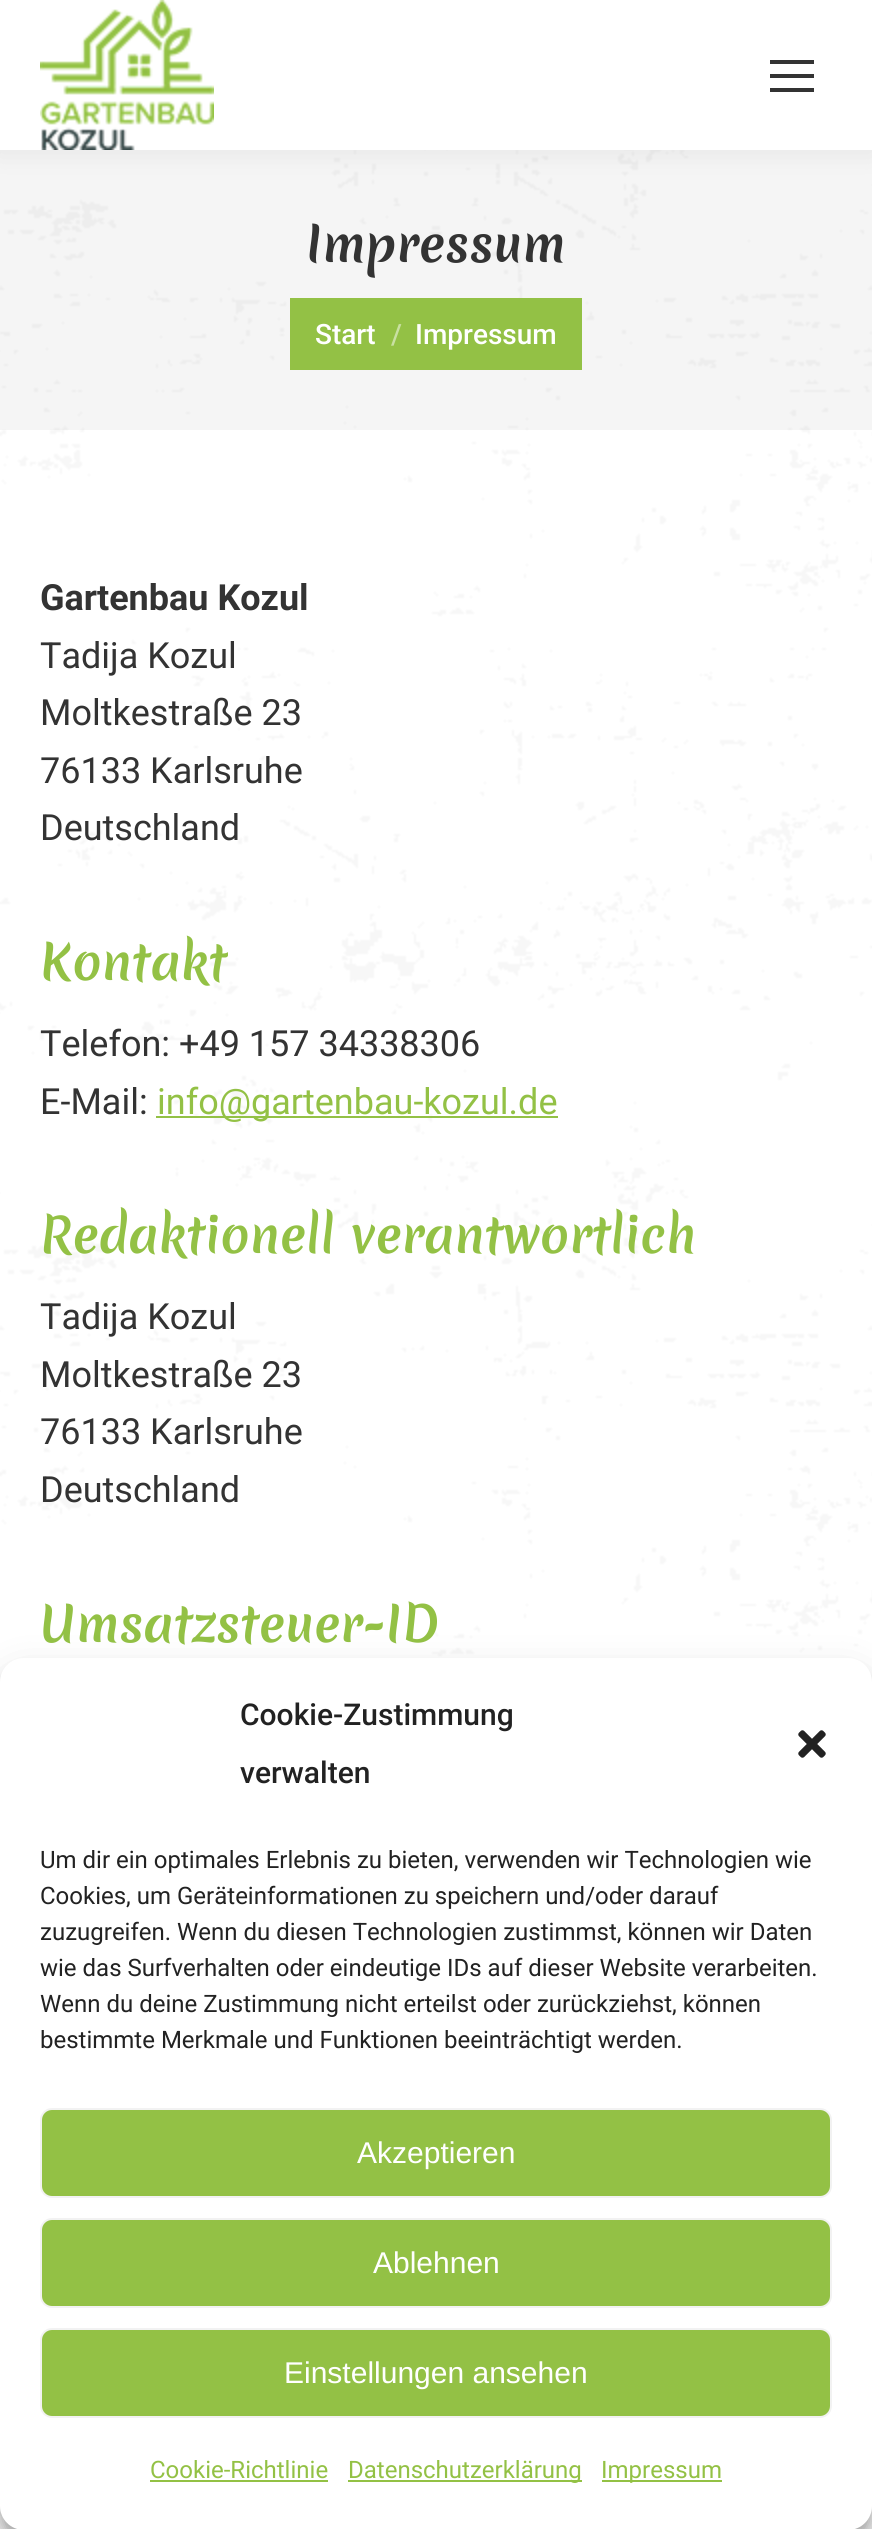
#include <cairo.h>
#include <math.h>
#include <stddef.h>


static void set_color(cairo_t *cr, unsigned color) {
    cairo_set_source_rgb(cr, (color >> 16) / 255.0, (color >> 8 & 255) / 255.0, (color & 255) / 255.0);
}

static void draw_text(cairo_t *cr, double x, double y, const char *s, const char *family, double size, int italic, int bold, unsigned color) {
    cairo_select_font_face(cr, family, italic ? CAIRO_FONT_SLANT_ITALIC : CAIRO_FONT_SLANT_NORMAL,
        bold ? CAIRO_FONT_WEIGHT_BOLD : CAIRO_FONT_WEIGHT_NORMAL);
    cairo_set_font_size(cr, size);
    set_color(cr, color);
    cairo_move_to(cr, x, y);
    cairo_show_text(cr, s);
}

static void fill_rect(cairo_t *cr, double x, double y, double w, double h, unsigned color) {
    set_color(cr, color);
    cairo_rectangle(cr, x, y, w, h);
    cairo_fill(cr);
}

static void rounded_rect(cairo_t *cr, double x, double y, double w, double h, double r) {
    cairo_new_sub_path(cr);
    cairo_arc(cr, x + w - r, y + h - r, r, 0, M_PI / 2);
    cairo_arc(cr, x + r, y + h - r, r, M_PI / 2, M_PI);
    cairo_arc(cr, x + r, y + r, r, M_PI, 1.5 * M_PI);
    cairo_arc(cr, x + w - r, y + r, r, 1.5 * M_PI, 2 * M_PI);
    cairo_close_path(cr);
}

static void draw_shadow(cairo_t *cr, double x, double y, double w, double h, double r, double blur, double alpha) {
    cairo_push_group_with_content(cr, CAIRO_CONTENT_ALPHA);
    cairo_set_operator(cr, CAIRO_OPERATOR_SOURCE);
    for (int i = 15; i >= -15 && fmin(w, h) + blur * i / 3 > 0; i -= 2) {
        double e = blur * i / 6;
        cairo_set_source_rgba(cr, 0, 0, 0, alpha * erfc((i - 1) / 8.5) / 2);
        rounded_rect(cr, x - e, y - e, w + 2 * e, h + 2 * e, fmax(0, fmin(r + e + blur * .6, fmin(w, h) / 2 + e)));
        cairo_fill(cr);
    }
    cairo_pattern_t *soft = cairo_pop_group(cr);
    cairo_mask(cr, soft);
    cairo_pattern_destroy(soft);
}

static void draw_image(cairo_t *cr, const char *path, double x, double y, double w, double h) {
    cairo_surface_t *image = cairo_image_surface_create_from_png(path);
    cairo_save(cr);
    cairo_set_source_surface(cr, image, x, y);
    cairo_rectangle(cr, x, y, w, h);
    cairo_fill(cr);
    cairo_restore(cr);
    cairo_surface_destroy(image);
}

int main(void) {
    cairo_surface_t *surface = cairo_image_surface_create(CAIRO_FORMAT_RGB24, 872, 2529);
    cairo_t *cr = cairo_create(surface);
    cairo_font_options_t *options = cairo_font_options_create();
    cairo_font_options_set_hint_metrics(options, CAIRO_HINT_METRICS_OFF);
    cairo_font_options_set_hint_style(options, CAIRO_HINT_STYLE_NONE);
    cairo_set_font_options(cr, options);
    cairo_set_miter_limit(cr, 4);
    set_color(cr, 0xFFFFFF);
    cairo_paint(cr);
    draw_image(cr, "assets/img1.png", 0, 150, 872, 2366);
    cairo_set_source_rgba(cr, 0, 0, 0, 0.04);
    cairo_rectangle(cr, 0, 150, 872, 280);
    cairo_fill(cr);
    set_color(cr, 0x000000);
    draw_shadow(cr, -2, -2, 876, 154, 0, 15, 0.07);
    fill_rect(cr, 0, 0, 872, 150, 0xFFFFFF);
    draw_image(cr, "assets/img2.png", 40, 0, 174, 150);
    fill_rect(cr, 770, 60, 44, 4, 0x333333);
    fill_rect(cr, 770, 74, 44, 4, 0x333333);
    fill_rect(cr, 770, 88, 44, 4, 0x333333);
    draw_text(cr, 306, 262, "Impressum", "Merienda", 48, 0, 1, 0x333333);
    fill_rect(cr, 290, 298, 292, 72, 0x93C145);
    draw_text(cr, 315, 344, "Start", "Roboto Medium", 28, 0, 0, 0xFFFFFF);
    draw_text(cr, 391, 344, "/", "Roboto Medium", 28, 0, 0, 0xC9E0A2);
    draw_text(cr, 415, 344, "Impressum", "Roboto Medium", 28, 0, 0, 0xFFFFFF);
    draw_text(cr, 40, 610, "Gartenbau Kozul", "Roboto", 36, 0, 1, 0x333333);
    draw_text(cr, 40, 668, "Tadija Kozul", "Roboto", 36, 0, 0, 0x333333);
    draw_text(cr, 40, 725, "Moltkestraße 23", "Roboto", 36, 0, 0, 0x333333);
    draw_text(cr, 40, 783, "76133 Karlsruhe", "Roboto", 36, 0, 0, 0x333333);
    draw_text(cr, 40, 840, "Deutschland", "Roboto", 36, 0, 0, 0x333333);
    draw_text(cr, 40, 980, "Kontakt", "Merienda", 48, 0, 1, 0x93C145);
    draw_text(cr, 40, 1056, "Telefon: +49 157 34338306", "Roboto", 36, 0, 0, 0x333333);
    draw_text(cr, 40, 1114, "E-Mail:", "Roboto", 36, 0, 0, 0x333333);
    fill_rect(cr, 156, 1116, 402, 2, 0x93C145);
    draw_text(cr, 157, 1114, "info@gartenbau-kozul.de", "Roboto", 36, 0, 0, 0x93C145);
    draw_text(cr, 40, 1253, "Redaktionell verantwortlich", "Merienda", 48, 0, 1, 0x93C145);
    draw_text(cr, 40, 1329, "Tadija Kozul", "Roboto", 36, 0, 0, 0x333333);
    draw_text(cr, 40, 1387, "Moltkestraße 23", "Roboto", 36, 0, 0, 0x333333);
    draw_text(cr, 40, 1444, "76133 Karlsruhe", "Roboto", 36, 0, 0, 0x333333);
    draw_text(cr, 40, 1502, "Deutschland", "Roboto", 36, 0, 0, 0x333333);
    draw_text(cr, 40, 1642, "Umsatzsteuer-ID", "Merienda", 48, 0, 1, 0x93C145);
    set_color(cr, 0x000000);
    draw_shadow(cr, 0, 1670, 872, 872, 24, 6, 0.23);
    draw_shadow(cr, 0, 1678, 872, 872, 24, 20, 0.19);
    set_color(cr, 0xFFFFFF);
    rounded_rect(cr, 0, 1658, 872, 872, 24);
    cairo_fill(cr);
    draw_text(cr, 240, 1725, "Cookie-Zustimmung", "Roboto Medium", 30, 0, 0, 0x222222);
    draw_text(cr, 240, 1783, "verwalten", "Roboto Medium", 30, 0, 0, 0x222222);
    draw_image(cr, "assets/img3.png", 798, 1730, 28, 28);
    draw_text(cr, 40, 1868, "Um dir ein optimales Erlebnis zu bieten, verwenden wir Technologien wie", "Roboto", 24, 0, 0, 0x222222);
    draw_text(cr, 40, 1904, "Cookies, um Geräteinformationen zu speichern und/oder darauf", "Roboto", 24, 0, 0, 0x222222);
    draw_text(cr, 40, 1940, "zuzugreifen. Wenn du diesen Technologien zustimmst, können wir Daten", "Roboto", 24, 0, 0, 0x222222);
    draw_text(cr, 40, 1976, "wie das Surfverhalten oder eindeutige IDs auf dieser Website verarbeiten.", "Roboto", 24, 0, 0, 0x222222);
    draw_text(cr, 40, 2012, "Wenn du deine Zustimmung nicht erteilst oder zurückziehst, können", "Roboto", 24, 0, 0, 0x222222);
    draw_text(cr, 40, 2048, "bestimmte Merkmale und Funktionen beeinträchtigt werden.", "Roboto", 24, 0, 0, 0x222222);
    set_color(cr, 0x93C145);
    rounded_rect(cr, 41, 2109, 790, 88, 11);
    cairo_fill_preserve(cr);
    set_color(cr, 0xF2F2F2);
    cairo_stroke(cr);
    draw_text(cr, 357, 2163, "Akzeptieren", "Liberation Sans", 30, 0, 0, 0xFFFFFF);
    set_color(cr, 0x93C145);
    rounded_rect(cr, 41, 2219, 790, 88, 11);
    cairo_fill_preserve(cr);
    set_color(cr, 0xF2F2F2);
    cairo_stroke(cr);
    draw_text(cr, 373, 2273, "Ablehnen", "Liberation Sans", 30, 0, 0, 0xFFFFFF);
    set_color(cr, 0x93C145);
    rounded_rect(cr, 41, 2329, 790, 88, 11);
    cairo_fill_preserve(cr);
    set_color(cr, 0xF2F2F2);
    cairo_stroke(cr);
    draw_text(cr, 284, 2383, "Einstellungen ansehen", "Liberation Sans", 30, 0, 0, 0xFFFFFF);
    draw_text(cr, 150, 2478, "Cookie-Richtlinie", "Roboto", 24, 0, 0, 0x93C145);
    fill_rect(cr, 150, 2480, 178, 2, 0x93C145);
    fill_rect(cr, 348, 2480, 234, 2, 0x93C145);
    draw_text(cr, 348, 2478, "Datenschutzerklärung", "Roboto", 24, 0, 0, 0x93C145);
    fill_rect(cr, 602, 2480, 120, 2, 0x93C145);
    draw_text(cr, 601, 2478, "Impressum", "Roboto", 24, 0, 0, 0x93C145);
    cairo_surface_write_to_png(surface, "output.png");
    cairo_font_options_destroy(options);
    cairo_destroy(cr);
    cairo_surface_destroy(surface);
    return 0;
}
